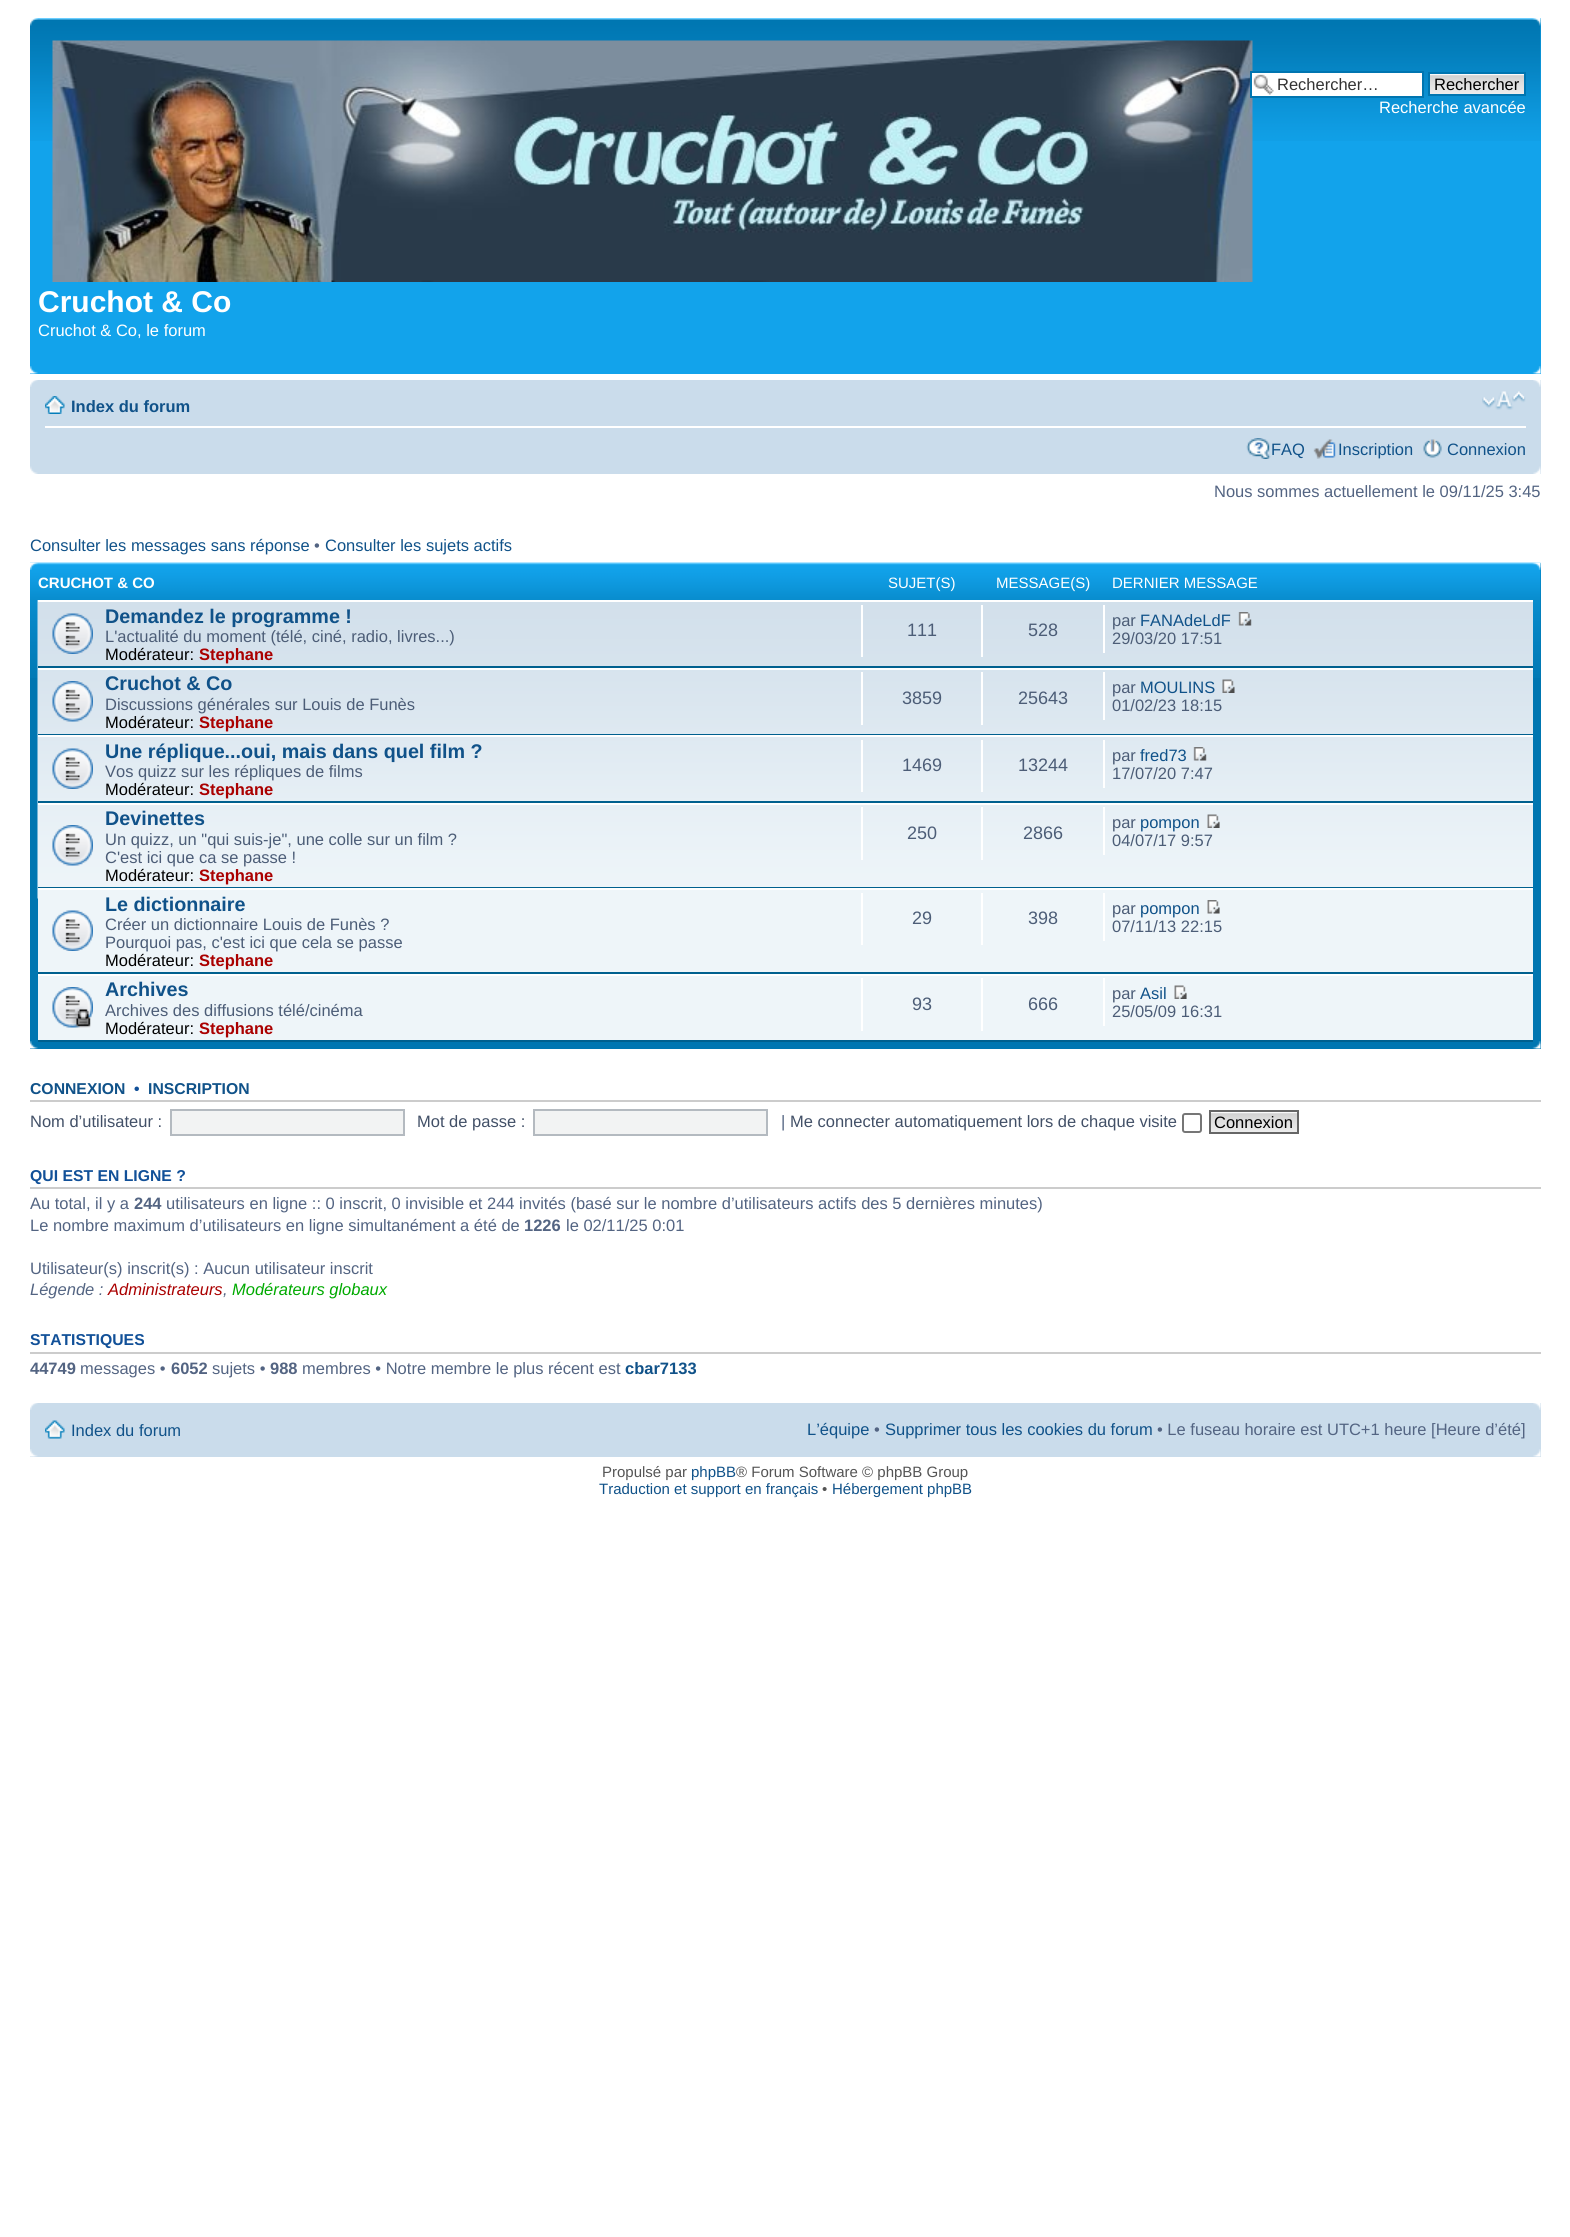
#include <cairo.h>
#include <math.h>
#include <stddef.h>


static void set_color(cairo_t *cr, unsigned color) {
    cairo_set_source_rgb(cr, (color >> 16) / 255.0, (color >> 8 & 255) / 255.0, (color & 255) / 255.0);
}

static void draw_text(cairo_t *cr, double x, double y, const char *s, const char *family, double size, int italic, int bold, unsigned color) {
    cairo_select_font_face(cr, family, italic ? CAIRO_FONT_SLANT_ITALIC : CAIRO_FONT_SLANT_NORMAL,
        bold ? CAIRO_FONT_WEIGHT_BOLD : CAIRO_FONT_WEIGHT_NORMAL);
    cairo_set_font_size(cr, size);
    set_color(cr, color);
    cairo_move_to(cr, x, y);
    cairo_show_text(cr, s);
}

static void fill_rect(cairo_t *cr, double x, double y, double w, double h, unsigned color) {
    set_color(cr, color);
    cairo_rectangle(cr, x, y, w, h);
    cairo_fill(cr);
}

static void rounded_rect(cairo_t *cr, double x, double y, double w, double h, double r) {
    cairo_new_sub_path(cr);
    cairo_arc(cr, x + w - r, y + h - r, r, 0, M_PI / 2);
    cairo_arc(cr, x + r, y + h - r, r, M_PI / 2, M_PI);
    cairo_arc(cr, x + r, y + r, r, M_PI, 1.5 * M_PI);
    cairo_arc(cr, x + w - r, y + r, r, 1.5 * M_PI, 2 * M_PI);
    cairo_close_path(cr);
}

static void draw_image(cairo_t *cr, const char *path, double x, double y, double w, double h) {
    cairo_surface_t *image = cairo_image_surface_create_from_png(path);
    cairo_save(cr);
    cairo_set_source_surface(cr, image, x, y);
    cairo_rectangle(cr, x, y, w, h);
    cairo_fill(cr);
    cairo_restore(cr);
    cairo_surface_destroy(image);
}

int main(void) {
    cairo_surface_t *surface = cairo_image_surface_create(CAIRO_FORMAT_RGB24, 1570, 2237);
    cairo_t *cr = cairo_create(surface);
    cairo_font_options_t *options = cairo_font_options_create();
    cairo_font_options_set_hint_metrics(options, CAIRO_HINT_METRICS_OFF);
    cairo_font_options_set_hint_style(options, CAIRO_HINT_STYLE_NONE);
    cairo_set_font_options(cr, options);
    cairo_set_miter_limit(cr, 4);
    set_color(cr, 0xFFFFFF);
    cairo_paint(cr);
    fill_rect(cr, 30, 18, 1511, 356, 0x12A3EB);
    draw_image(cr, "assets/img1.png", 30, 18, 1511, 123);
    draw_image(cr, "assets/img2.png", 30, 18, 8, 8);
    draw_image(cr, "assets/img3.png", 1532, 18, 9, 8);
    draw_image(cr, "assets/img6.png", 52, 40, 1201, 242);
    fill_rect(cr, 1252, 73, 170, 23, 0xFFFFFF);
    draw_image(cr, "assets/img4.png", 1253, 74, 21, 21);
    cairo_rectangle(cr, 1251, 72, 172, 25);
    set_color(cr, 0x0075B0);
    cairo_stroke(cr);
    draw_text(cr, 1277, 90, "Rechercher…", "Liberation Sans", 16.5, 0, 0, 0x333333);
    fill_rect(cr, 1430, 74, 94, 1, 0xFAFAFA);
    draw_image(cr, "assets/img5.png", 1430, 75, 94, 19);
    cairo_rectangle(cr, 1429, 73, 96, 22);
    set_color(cr, 0x0075B0);
    cairo_stroke(cr);
    draw_text(cr, 1434, 90, "Rechercher", "Liberation Sans", 16.5, 0, 0, 0x000000);
    draw_text(cr, 1379, 113, "Recherche avancée", "Liberation Sans", 16.5, 0, 0, 0xFFFFFF);
    draw_text(cr, 38, 312, "Cruchot & Co", "Liberation Sans", 30, 0, 1, 0xFFFFFF);
    draw_text(cr, 38, 336, "Cruchot & Co, le forum", "Liberation Sans", 16.5, 0, 0, 0xFFFFFF);
    draw_image(cr, "assets/img7.png", 30, 366, 8, 8);
    draw_image(cr, "assets/img8.png", 1532, 366, 9, 8);
    fill_rect(cr, 30, 380, 1511, 94, 0xCADCEB);
    draw_image(cr, "assets/img9.png", 30, 380, 8, 7);
    draw_image(cr, "assets/img10.png", 1533, 380, 8, 7);
    fill_rect(cr, 45, 426, 1481, 2, 0xFFFFFF);
    draw_image(cr, "assets/img11.png", 45, 396, 20, 18);
    draw_text(cr, 71, 412, "Index du forum", "Liberation Sans", 16.5, 0, 1, 0x105289);
    draw_image(cr, "assets/img12.png", 1482, 391, 44, 19);
    draw_image(cr, "assets/img13.png", 1246, 438, 25, 21);
    draw_text(cr, 1271, 455, "FAQ", "Liberation Sans", 16.5, 0, 0, 0x105289);
    draw_image(cr, "assets/img14.png", 1313, 439, 23, 20);
    draw_text(cr, 1338, 455, "Inscription", "Liberation Sans", 16.5, 0, 0, 0x105289);
    draw_image(cr, "assets/img15.png", 1423, 439, 19, 19);
    draw_text(cr, 1447, 455, "Connexion", "Liberation Sans", 16.5, 0, 0, 0x105289);
    draw_image(cr, "assets/img16.png", 30, 466, 8, 8);
    draw_image(cr, "assets/img17.png", 1533, 466, 8, 8);
    draw_text(cr, 1214, 497, "Nous sommes actuellement le 09/11/25 3:45", "Liberation Sans", 16.5, 0, 0, 0x536482);
    draw_text(cr, 30, 551, "Consulter les messages sans réponse", "Liberation Sans", 16.5, 0, 0, 0x105289);
    draw_text(cr, 314, 551, "•", "Liberation Sans", 16.5, 0, 0, 0x536482);
    draw_text(cr, 325, 551, "Consulter les sujets actifs", "Liberation Sans", 16.5, 0, 0, 0x105289);
    fill_rect(cr, 30, 563, 1511, 486, 0x0076B1);
    draw_image(cr, "assets/img18.png", 30, 562, 1511, 116);
    draw_image(cr, "assets/img19.png", 30, 562, 8, 8);
    draw_image(cr, "assets/img20.png", 1532, 562, 9, 8);
    draw_text(cr, 38, 588, "CRUCHOT & CO", "Liberation Sans", 15, 0, 1, 0xFFFFFF);
    draw_text(cr, 888, 588, "SUJET(S)", "Liberation Sans", 15, 0, 0, 0xFFFFFF);
    draw_text(cr, 996, 588, "MESSAGE(S)", "Liberation Sans", 15, 0, 0, 0xFFFFFF);
    draw_text(cr, 1112, 588, "DERNIER MESSAGE", "Liberation Sans", 15, 0, 0, 0xFFFFFF);
    fill_rect(cr, 38, 898, 1495, 142, 0xEEF5F9);
    draw_image(cr, "assets/img21.png", 37, 600, 1496, 299);
    fill_rect(cr, 38, 600, 1495, 2, 0xFFFFFF);
    fill_rect(cr, 38, 666, 1495, 2, 0x00608F);
    draw_image(cr, "assets/img22.png", 52, 613, 41, 41);
    draw_text(cr, 105, 623, "Demandez le programme !", "Liberation Sans", 19.75, 0, 1, 0x105289);
    draw_text(cr, 105, 642, "L'actualité du moment (télé, ciné, radio, livres...)", "Liberation Sans", 16.5, 0, 0, 0x4C5D77);
    draw_text(cr, 105, 660, "Modérateur:", "Liberation Sans", 16.5, 0, 0, 0x000000);
    draw_text(cr, 199, 660, "Stephane", "Liberation Sans", 16.5, 0, 1, 0xAA0000);
    fill_rect(cr, 861, 605, 2, 52, 0xFFFFFF);
    draw_text(cr, 907, 636, "111", "Liberation Sans", 18, 0, 0, 0x4C5D77);
    fill_rect(cr, 981, 605, 2, 52, 0xFFFFFF);
    draw_text(cr, 1028, 636, "528", "Liberation Sans", 18, 0, 0, 0x4C5D77);
    fill_rect(cr, 1103, 605, 2, 48, 0xFFFFFF);
    draw_text(cr, 1112, 626, "par", "Liberation Sans", 16.5, 0, 0, 0x4C5D77);
    draw_text(cr, 1140, 626, "FANAdeLdF", "Liberation Sans", 16.5, 0, 0, 0x105289);
    draw_image(cr, "assets/img23.png", 1238, 612, 14, 14);
    draw_text(cr, 1112, 644, "29/03/20 17:51", "Liberation Sans", 16.5, 0, 0, 0x4C5D77);
    fill_rect(cr, 38, 668, 1495, 2, 0xFFFFFF);
    fill_rect(cr, 38, 734, 1495, 1, 0x00608F);
    draw_image(cr, "assets/img24.png", 52, 681, 41, 41);
    draw_text(cr, 105, 690, "Cruchot & Co", "Liberation Sans", 19.75, 0, 1, 0x105289);
    draw_text(cr, 105, 710, "Discussions générales sur Louis de Funès", "Liberation Sans", 16.5, 0, 0, 0x4C5D77);
    draw_text(cr, 105, 728, "Modérateur:", "Liberation Sans", 16.5, 0, 0, 0x000000);
    draw_text(cr, 199, 728, "Stephane", "Liberation Sans", 16.5, 0, 1, 0xAA0000);
    fill_rect(cr, 861, 672, 2, 53, 0xFFFFFF);
    draw_text(cr, 902, 704, "3859", "Liberation Sans", 18, 0, 0, 0x4C5D77);
    fill_rect(cr, 981, 672, 2, 53, 0xFFFFFF);
    draw_text(cr, 1018, 704, "25643", "Liberation Sans", 18, 0, 0, 0x4C5D77);
    fill_rect(cr, 1103, 672, 2, 48, 0xFFFFFF);
    draw_text(cr, 1112, 693, "par", "Liberation Sans", 16.5, 0, 0, 0x4C5D77);
    draw_text(cr, 1140, 693, "MOULINS", "Liberation Sans", 16.5, 0, 0, 0x105289);
    draw_image(cr, "assets/img25.png", 1222, 679, 13, 14);
    draw_text(cr, 1112, 711, "01/02/23 18:15", "Liberation Sans", 16.5, 0, 0, 0x4C5D77);
    fill_rect(cr, 38, 735, 1495, 2, 0xFFFFFF);
    fill_rect(cr, 38, 801, 1495, 2, 0x00608F);
    draw_image(cr, "assets/img26.png", 52, 748, 41, 41);
    draw_text(cr, 105, 758, "Une réplique...oui, mais dans quel film ?", "Liberation Sans", 19.75, 0, 1, 0x105289);
    draw_text(cr, 105, 777, "Vos quizz sur les répliques de films", "Liberation Sans", 16.5, 0, 0, 0x4C5D77);
    draw_text(cr, 105, 795, "Modérateur:", "Liberation Sans", 16.5, 0, 0, 0x000000);
    draw_text(cr, 199, 795, "Stephane", "Liberation Sans", 16.5, 0, 1, 0xAA0000);
    fill_rect(cr, 861, 740, 2, 52, 0xFFFFFF);
    draw_text(cr, 902, 771, "1469", "Liberation Sans", 18, 0, 0, 0x4C5D77);
    fill_rect(cr, 981, 740, 2, 52, 0xFFFFFF);
    draw_text(cr, 1018, 771, "13244", "Liberation Sans", 18, 0, 0, 0x4C5D77);
    fill_rect(cr, 1103, 740, 2, 48, 0xFFFFFF);
    draw_text(cr, 1112, 761, "par", "Liberation Sans", 16.5, 0, 0, 0x4C5D77);
    draw_text(cr, 1140, 761, "fred73", "Liberation Sans", 16.5, 0, 0, 0x105289);
    draw_image(cr, "assets/img27.png", 1193, 747, 14, 14);
    draw_text(cr, 1112, 779, "17/07/20 7:47", "Liberation Sans", 16.5, 0, 0, 0x4C5D77);
    fill_rect(cr, 38, 803, 1495, 2, 0xFFFFFF);
    fill_rect(cr, 38, 887, 1495, 1, 0x00608F);
    draw_image(cr, "assets/img28.png", 52, 825, 41, 41);
    draw_text(cr, 105, 825, "Devinettes", "Liberation Sans", 19.75, 0, 1, 0x105289);
    draw_text(cr, 105, 845, "Un quizz, un \"qui suis-je\", une colle sur un film ?", "Liberation Sans", 16.5, 0, 0, 0x4C5D77);
    draw_text(cr, 105, 863, "C'est ici que ca se passe !", "Liberation Sans", 16.5, 0, 0, 0x4C5D77);
    draw_text(cr, 105, 881, "Modérateur:", "Liberation Sans", 16.5, 0, 0, 0x000000);
    draw_text(cr, 199, 881, "Stephane", "Liberation Sans", 16.5, 0, 1, 0xAA0000);
    fill_rect(cr, 861, 807, 2, 53, 0xFFFFFF);
    draw_text(cr, 907, 839, "250", "Liberation Sans", 18, 0, 0, 0x4C5D77);
    fill_rect(cr, 981, 807, 2, 53, 0xFFFFFF);
    draw_text(cr, 1023, 839, "2866", "Liberation Sans", 18, 0, 0, 0x4C5D77);
    fill_rect(cr, 1103, 807, 2, 48, 0xFFFFFF);
    draw_text(cr, 1112, 828, "par", "Liberation Sans", 16.5, 0, 0, 0x4C5D77);
    draw_text(cr, 1140, 828, "pompon", "Liberation Sans", 16.5, 0, 0, 0x105289);
    draw_image(cr, "assets/img29.png", 1207, 814, 13, 14);
    draw_text(cr, 1112, 846, "04/07/17 9:57", "Liberation Sans", 16.5, 0, 0, 0x4C5D77);
    fill_rect(cr, 38, 888, 1495, 2, 0xFFFFFF);
    fill_rect(cr, 38, 972, 1495, 2, 0x00608F);
    draw_image(cr, "assets/img30.png", 52, 910, 41, 41);
    draw_text(cr, 105, 911, "Le dictionnaire", "Liberation Sans", 19.75, 0, 1, 0x105289);
    draw_text(cr, 105, 930, "Créer un dictionnaire Louis de Funès ?", "Liberation Sans", 16.5, 0, 0, 0x4C5D77);
    draw_text(cr, 105, 948, "Pourquoi pas, c'est ici que cela se passe", "Liberation Sans", 16.5, 0, 0, 0x4C5D77);
    draw_text(cr, 105, 966, "Modérateur:", "Liberation Sans", 16.5, 0, 0, 0x000000);
    draw_text(cr, 199, 966, "Stephane", "Liberation Sans", 16.5, 0, 1, 0xAA0000);
    fill_rect(cr, 861, 893, 2, 52, 0xFFFFFF);
    draw_text(cr, 912, 924, "29", "Liberation Sans", 18, 0, 0, 0x4C5D77);
    fill_rect(cr, 981, 893, 2, 52, 0xFFFFFF);
    draw_text(cr, 1028, 924, "398", "Liberation Sans", 18, 0, 0, 0x4C5D77);
    fill_rect(cr, 1103, 893, 2, 48, 0xFFFFFF);
    draw_text(cr, 1112, 914, "par", "Liberation Sans", 16.5, 0, 0, 0x4C5D77);
    draw_text(cr, 1140, 914, "pompon", "Liberation Sans", 16.5, 0, 0, 0x105289);
    draw_image(cr, "assets/img31.png", 1207, 900, 13, 14);
    draw_text(cr, 1112, 932, "07/11/13 22:15", "Liberation Sans", 16.5, 0, 0, 0x4C5D77);
    fill_rect(cr, 38, 974, 1495, 2, 0xFFFFFF);
    fill_rect(cr, 38, 1040, 1495, 2, 0x00608F);
    draw_image(cr, "assets/img32.png", 52, 987, 41, 41);
    draw_text(cr, 105, 996, "Archives", "Liberation Sans", 19.75, 0, 1, 0x105289);
    draw_text(cr, 105, 1016, "Archives des diffusions télé/cinéma", "Liberation Sans", 16.5, 0, 0, 0x4C5D77);
    draw_text(cr, 105, 1034, "Modérateur:", "Liberation Sans", 16.5, 0, 0, 0x000000);
    draw_text(cr, 199, 1034, "Stephane", "Liberation Sans", 16.5, 0, 1, 0xAA0000);
    fill_rect(cr, 861, 978, 2, 53, 0xFFFFFF);
    draw_text(cr, 912, 1010, "93", "Liberation Sans", 18, 0, 0, 0x4C5D77);
    fill_rect(cr, 981, 978, 2, 53, 0xFFFFFF);
    draw_text(cr, 1028, 1010, "666", "Liberation Sans", 18, 0, 0, 0x4C5D77);
    fill_rect(cr, 1103, 978, 2, 48, 0xFFFFFF);
    draw_text(cr, 1112, 999, "par", "Liberation Sans", 16.5, 0, 0, 0x4C5D77);
    draw_text(cr, 1140, 999, "Asil", "Liberation Sans", 16.5, 0, 0, 0x105289);
    draw_image(cr, "assets/img33.png", 1174, 985, 13, 14);
    draw_text(cr, 1112, 1017, "25/05/09 16:31", "Liberation Sans", 16.5, 0, 0, 0x4C5D77);
    draw_image(cr, "assets/img34.png", 30, 1041, 8, 8);
    draw_image(cr, "assets/img35.png", 1532, 1041, 9, 8);
    fill_rect(cr, 30, 1100, 1511, 2, 0xCCCCCC);
    draw_text(cr, 30, 1094, "CONNEXION", "Liberation Sans", 15.75, 0, 1, 0x105289);
    draw_text(cr, 134, 1094, "•", "Liberation Sans", 15.75, 0, 1, 0x115098);
    draw_text(cr, 148, 1094, "INSCRIPTION", "Liberation Sans", 15.75, 0, 1, 0x105289);
    draw_text(cr, 30, 1127, "Nom d’utilisateur :", "Liberation Sans", 16.5, 0, 0, 0x425067);
    set_color(cr, 0xF2F3F3);
    cairo_rectangle(cr, 171, 1110, 233, 25);
    cairo_fill_preserve(cr);
    set_color(cr, 0xB4BAC0);
    cairo_stroke(cr);
    draw_text(cr, 417, 1127, "Mot de passe :", "Liberation Sans", 16.5, 0, 0, 0x425067);
    set_color(cr, 0xF2F3F3);
    cairo_rectangle(cr, 534, 1110, 233, 25);
    cairo_fill_preserve(cr);
    set_color(cr, 0xB4BAC0);
    cairo_stroke(cr);
    draw_text(cr, 781, 1127, "|", "Liberation Sans", 16.5, 0, 0, 0x536482);
    draw_text(cr, 790, 1127, "Me connecter automatiquement lors de chaque visite", "Liberation Sans", 16.5, 0, 0, 0x425067);
    rounded_rect(cr, 1183, 1114, 18, 18, 2);
    set_color(cr, 0x767676);
    cairo_stroke(cr);
    fill_rect(cr, 1211, 1112, 86, 1, 0xFAFAFA);
    draw_image(cr, "assets/img36.png", 1211, 1113, 86, 19);
    cairo_rectangle(cr, 1210, 1111, 88, 22);
    set_color(cr, 0x666666);
    cairo_stroke(cr);
    draw_text(cr, 1214, 1128, "Connexion", "Liberation Sans", 16.5, 0, 0, 0x000000);
    fill_rect(cr, 30, 1187, 1511, 2, 0xCCCCCC);
    draw_text(cr, 30, 1181, "QUI EST EN LIGNE ?", "Liberation Sans", 15.75, 0, 1, 0x115098);
    draw_text(cr, 30, 1209, "Au total, il y a", "Liberation Sans", 16.5, 0, 0, 0x536482);
    draw_text(cr, 134, 1209, "244", "Liberation Sans", 16.5, 0, 1, 0x536482);
    draw_text(cr, 166, 1209, "utilisateurs en ligne :: 0 inscrit, 0 invisible et 244 invités (basé sur le nombre d’utilisateurs actifs des 5 dernières minutes)", "Liberation Sans", 16.5, 0, 0, 0x536482);
    draw_text(cr, 30, 1231, "Le nombre maximum d’utilisateurs en ligne simultanément a été de", "Liberation Sans", 16.5, 0, 0, 0x536482);
    draw_text(cr, 524, 1231, "1226", "Liberation Sans", 16.5, 0, 1, 0x536482);
    draw_text(cr, 566, 1231, "le 02/11/25 0:01", "Liberation Sans", 16.5, 0, 0, 0x536482);
    draw_text(cr, 30, 1274, "Utilisateur(s) inscrit(s) : Aucun utilisateur inscrit", "Liberation Sans", 16.5, 0, 0, 0x536482);
    draw_text(cr, 30, 1295, "Légende :", "Liberation Sans", 16.5, 1, 0, 0x536482);
    draw_text(cr, 108, 1295, "Administrateurs", "Liberation Sans", 16.5, 1, 0, 0xAA0000);
    draw_text(cr, 223, 1295, ",", "Liberation Sans", 16.5, 1, 0, 0x536482);
    draw_text(cr, 232, 1295, "Modérateurs globaux", "Liberation Sans", 16.5, 1, 0, 0x00AA00);
    fill_rect(cr, 30, 1352, 1511, 2, 0xCCCCCC);
    draw_text(cr, 30, 1345, "STATISTIQUES", "Liberation Sans", 15.75, 0, 1, 0x115098);
    draw_text(cr, 30, 1374, "44749", "Liberation Sans", 16.5, 0, 1, 0x536482);
    draw_text(cr, 80, 1374, "messages •", "Liberation Sans", 16.5, 0, 0, 0x536482);
    draw_text(cr, 171, 1374, "6052", "Liberation Sans", 16.5, 0, 1, 0x536482);
    draw_text(cr, 212, 1374, "sujets •", "Liberation Sans", 16.5, 0, 0, 0x536482);
    draw_text(cr, 270, 1374, "988", "Liberation Sans", 16.5, 0, 1, 0x536482);
    draw_text(cr, 302, 1374, "membres • Notre membre le plus récent est", "Liberation Sans", 16.5, 0, 0, 0x536482);
    draw_text(cr, 625, 1374, "cbar7133", "Liberation Sans", 16.5, 0, 1, 0x105289);
    fill_rect(cr, 30, 1403, 1511, 54, 0xCADCEB);
    draw_image(cr, "assets/img9.png", 30, 1403, 8, 7);
    draw_image(cr, "assets/img10.png", 1533, 1403, 8, 7);
    draw_image(cr, "assets/img37.png", 45, 1420, 20, 19);
    draw_text(cr, 71, 1436, "Index du forum", "Liberation Sans", 16.5, 0, 0, 0x105289);
    draw_text(cr, 807, 1435, "L’équipe", "Liberation Sans", 16.5, 0, 0, 0x105289);
    draw_text(cr, 874, 1435, "•", "Liberation Sans", 16.5, 0, 0, 0x536482);
    draw_text(cr, 885, 1435, "Supprimer tous les cookies du forum", "Liberation Sans", 16.5, 0, 0, 0x105289);
    draw_text(cr, 1157, 1435, "• Le fuseau horaire est UTC+1 heure [Heure d’été]", "Liberation Sans", 16.5, 0, 0, 0x536482);
    draw_image(cr, "assets/img38.png", 30, 1449, 8, 8);
    draw_image(cr, "assets/img39.png", 1533, 1449, 8, 8);
    draw_text(cr, 602, 1477, "Propulsé par", "Liberation Sans", 15, 0, 0, 0x555555);
    draw_text(cr, 691, 1477, "phpBB", "Liberation Sans", 15, 0, 0, 0x105289);
    draw_text(cr, 736, 1477, "® Forum Software © phpBB Group", "Liberation Sans", 15, 0, 0, 0x555555);
    draw_text(cr, 599, 1494, "Traduction et support en français", "Liberation Sans", 15, 0, 0, 0x105289);
    draw_text(cr, 822, 1494, "•", "Liberation Sans", 15, 0, 0, 0x555555);
    draw_text(cr, 832, 1494, "Hébergement phpBB", "Liberation Sans", 15, 0, 0, 0x105289);
    cairo_surface_write_to_png(surface, "output.png");
    cairo_font_options_destroy(options);
    cairo_destroy(cr);
    cairo_surface_destroy(surface);
    return 0;
}
